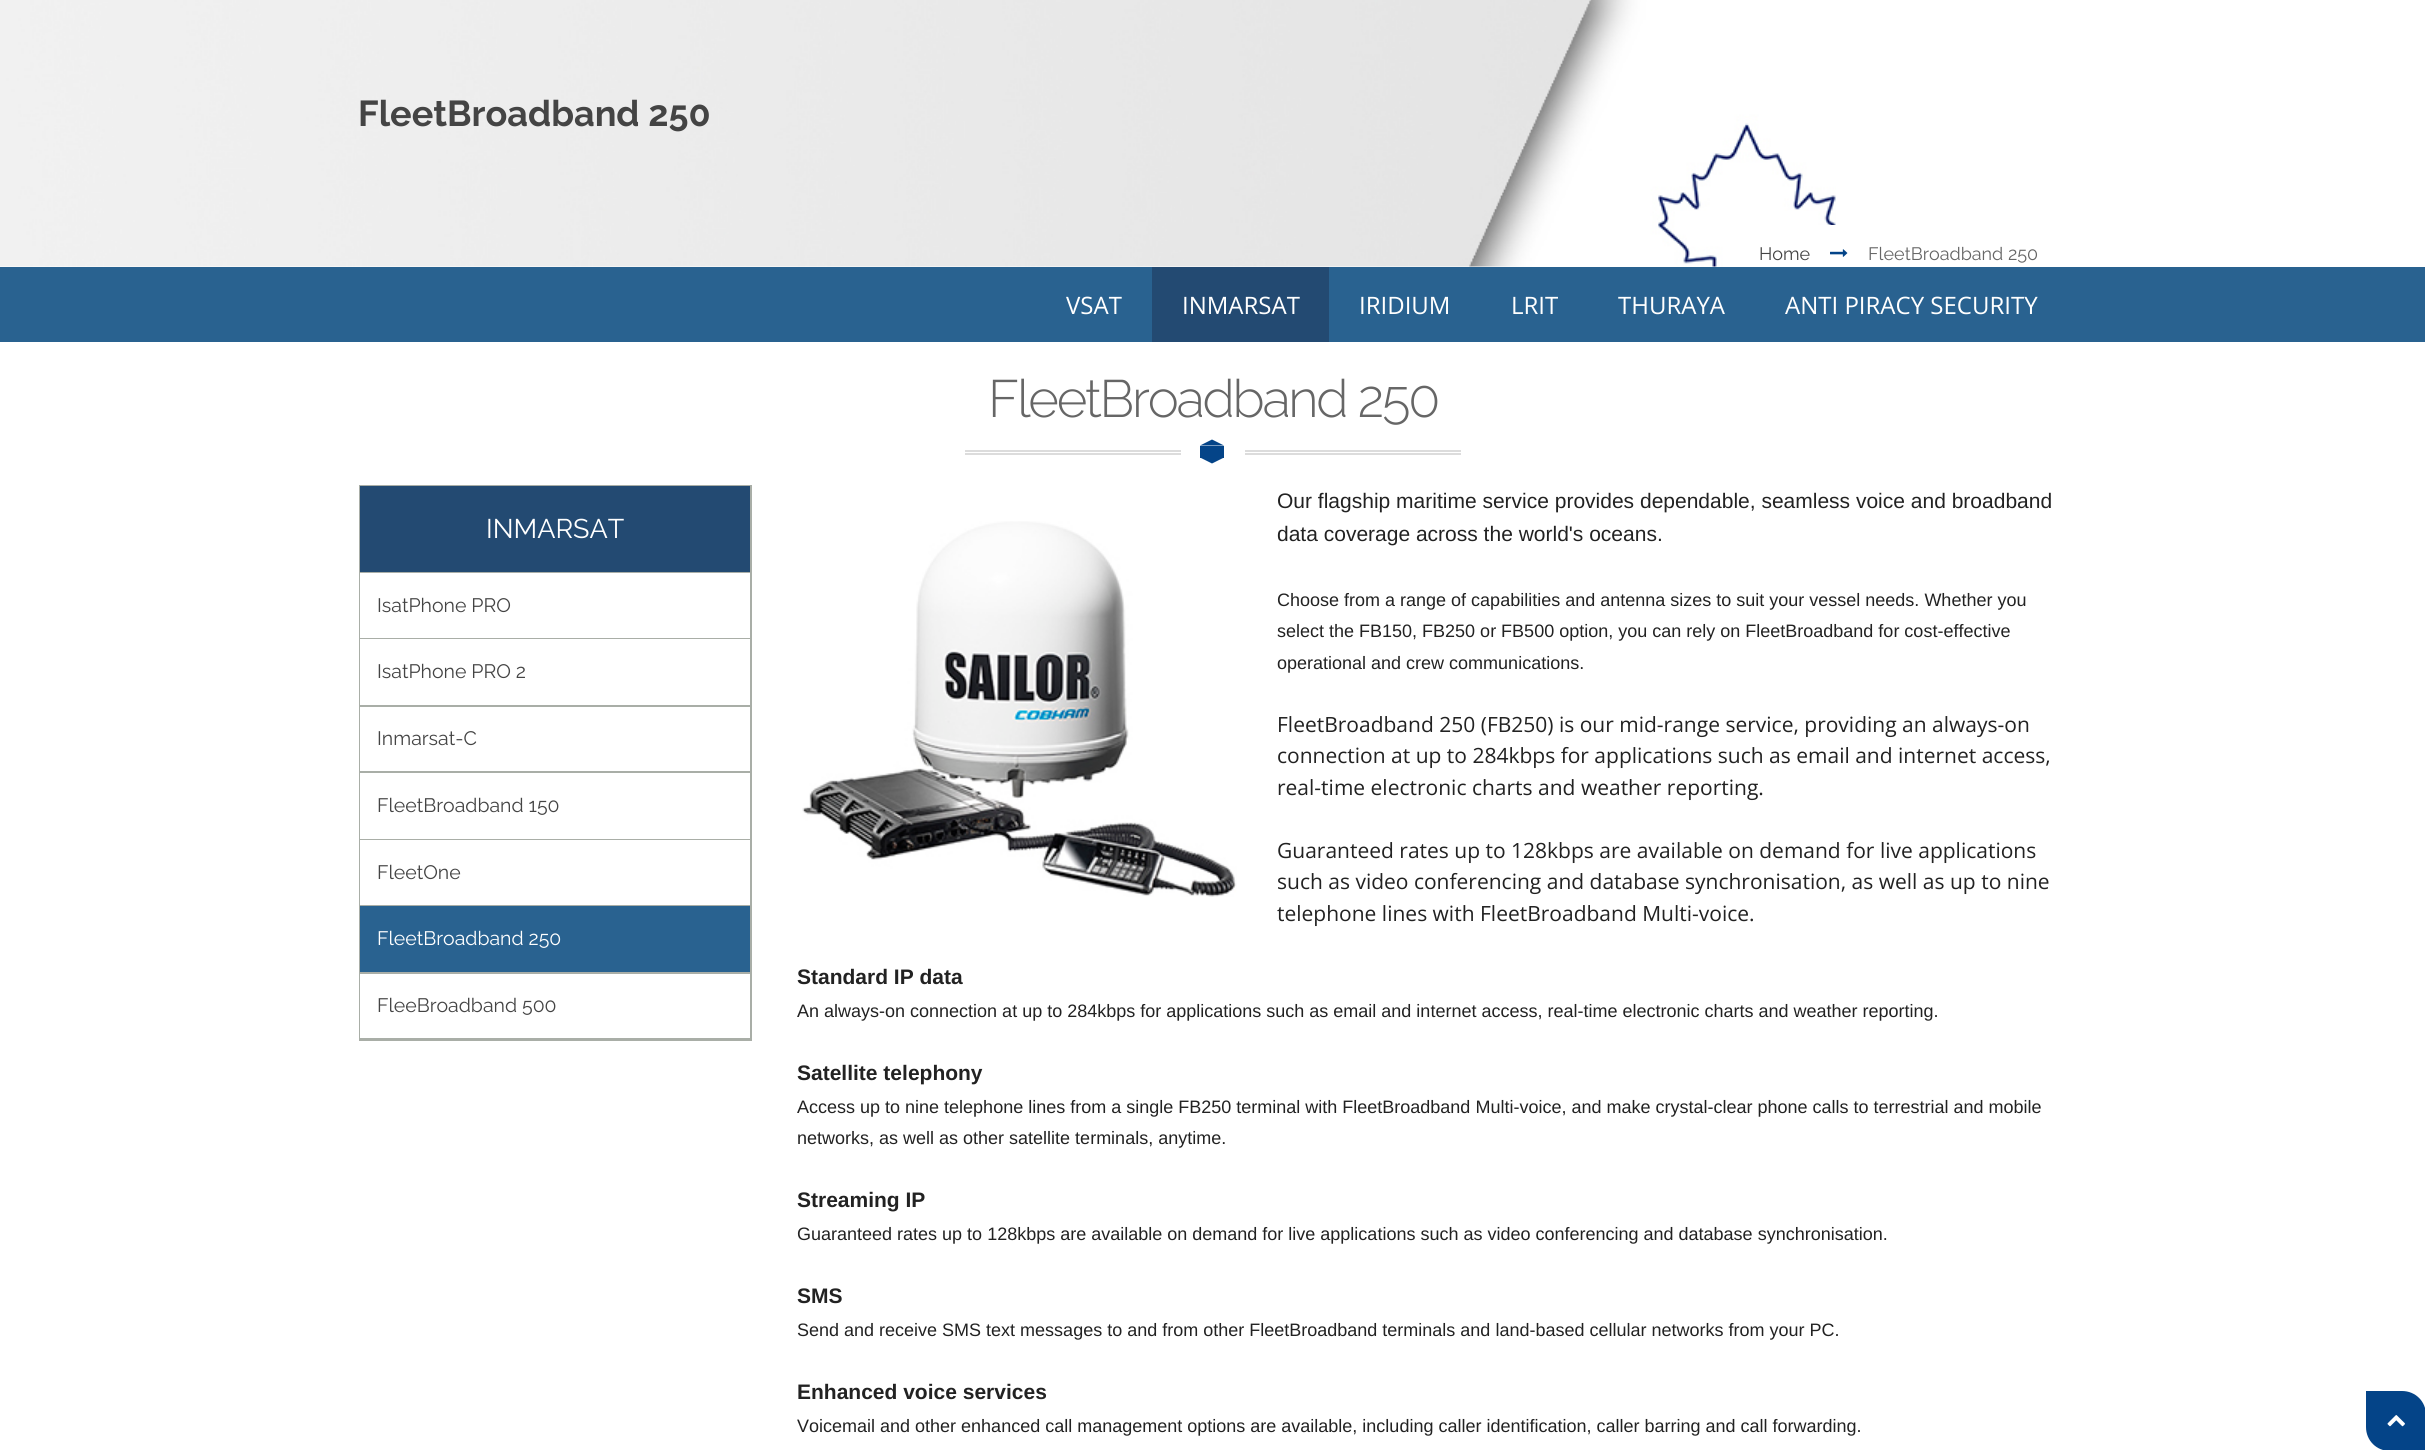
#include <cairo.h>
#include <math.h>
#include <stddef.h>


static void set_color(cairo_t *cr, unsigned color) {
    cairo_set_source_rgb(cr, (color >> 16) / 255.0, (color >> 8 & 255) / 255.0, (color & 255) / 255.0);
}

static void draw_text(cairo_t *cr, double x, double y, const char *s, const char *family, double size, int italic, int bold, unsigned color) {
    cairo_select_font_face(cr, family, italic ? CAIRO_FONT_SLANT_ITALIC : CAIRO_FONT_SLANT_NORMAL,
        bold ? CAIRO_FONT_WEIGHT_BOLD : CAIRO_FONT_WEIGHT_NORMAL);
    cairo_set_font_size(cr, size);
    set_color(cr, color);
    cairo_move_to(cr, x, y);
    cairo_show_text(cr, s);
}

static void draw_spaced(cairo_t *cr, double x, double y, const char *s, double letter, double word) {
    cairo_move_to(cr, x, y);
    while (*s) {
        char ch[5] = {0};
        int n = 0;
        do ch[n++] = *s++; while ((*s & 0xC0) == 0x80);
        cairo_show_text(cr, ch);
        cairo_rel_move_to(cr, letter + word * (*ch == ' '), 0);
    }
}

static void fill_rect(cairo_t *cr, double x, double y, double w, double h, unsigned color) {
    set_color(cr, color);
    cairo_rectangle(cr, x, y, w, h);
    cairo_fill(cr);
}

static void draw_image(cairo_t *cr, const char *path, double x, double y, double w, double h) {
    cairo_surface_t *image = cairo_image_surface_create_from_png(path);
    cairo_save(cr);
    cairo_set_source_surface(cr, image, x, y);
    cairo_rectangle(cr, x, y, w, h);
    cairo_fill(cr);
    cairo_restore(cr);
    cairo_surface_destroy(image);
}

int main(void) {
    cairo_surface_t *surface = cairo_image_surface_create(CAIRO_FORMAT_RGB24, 2425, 1450);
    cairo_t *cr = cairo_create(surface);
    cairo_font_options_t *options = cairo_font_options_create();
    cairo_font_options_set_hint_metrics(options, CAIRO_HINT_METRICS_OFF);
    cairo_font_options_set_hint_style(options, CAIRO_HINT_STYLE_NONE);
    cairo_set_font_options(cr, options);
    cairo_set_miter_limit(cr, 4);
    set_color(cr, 0xFFFFFF);
    cairo_paint(cr);
    draw_image(cr, "assets/img1.png", 0, 0, 1836, 267);
    draw_text(cr, 358, 126, "FleetBroadband 250", "Raleway", 36, 0, 1, 0x444444);
    set_color(cr, 0xFFFFFF);
    cairo_new_path(cr);
    cairo_move_to(cr, 1766, 225);
    cairo_line_to(cr, 2033, 225);
    cairo_curve_to(cr, 2053, 225, 2069, 241, 2069, 261);
    cairo_line_to(cr, 2069, 267);
    cairo_line_to(cr, 1730, 267);
    cairo_line_to(cr, 1730, 261);
    cairo_curve_to(cr, 1730, 241, 1746, 225, 1766, 225);
    cairo_close_path(cr);
    cairo_fill(cr);
    draw_text(cr, 1759, 260, "Home", "Raleway", 18, 0, 0, 0x444444);
    draw_image(cr, "assets/img2.png", 1830, 249, 18, 8);
    draw_text(cr, 1868, 260, "FleetBroadband 250", "Raleway", 18, 0, 0, 0x666666);
    fill_rect(cr, 0, 267, 2425, 75, 0x296290);
    draw_text(cr, 1066, 314, "VSAT", "Open Sans", 24, 0, 0, 0xFFFFFF);
    fill_rect(cr, 1152, 267, 177, 75, 0x234A72);
    draw_text(cr, 1182, 314, "INMARSAT", "Open Sans", 24, 0, 0, 0xFFFFFF);
    draw_text(cr, 1359, 314, "IRIDIUM", "Open Sans", 24, 0, 0, 0xFFFFFF);
    draw_text(cr, 1511, 314, "LRIT", "Open Sans", 24, 0, 0, 0xFFFFFF);
    draw_text(cr, 1618, 314, "THURAYA", "Open Sans", 24, 0, 0, 0xFFFFFF);
    draw_text(cr, 1785, 314, "ANTI PIRACY SECURITY", "Open Sans", 24, 0, 0, 0xFFFFFF);
    cairo_select_font_face(cr, "Raleway Light", CAIRO_FONT_SLANT_NORMAL, CAIRO_FONT_WEIGHT_NORMAL);
    cairo_set_font_size(cr, 52.5);
    set_color(cr, 0x666666);
    draw_spaced(cr, 988, 417, "FleetBroadband 250", -2.25, 0);
    fill_rect(cr, 965, 450, 216, 2, 0xDCDCDC);
    fill_rect(cr, 965, 453, 216, 2, 0xDCDCDC);
    fill_rect(cr, 1200, 446, 24, 12, 0x044488);
    cairo_new_path(cr);
    cairo_move_to(cr, 1224, 445.5);
    cairo_line_to(cr, 1200, 445.5);
    cairo_line_to(cr, 1212, 439.5);
    cairo_close_path(cr);
    cairo_move_to(cr, 1200, 457.5);
    cairo_line_to(cr, 1224, 457.5);
    cairo_line_to(cr, 1212, 463.5);
    cairo_close_path(cr);
    cairo_fill(cr);
    fill_rect(cr, 1245, 450, 216, 2, 0xDCDCDC);
    fill_rect(cr, 1245, 453, 216, 2, 0xDCDCDC);
    cairo_rectangle(cr, 360, 486, 391, 554);
    set_color(cr, 0xA9AEA7);
    cairo_stroke(cr);
    fill_rect(cr, 360, 486, 390, 86, 0x234A72);
    fill_rect(cr, 360, 572, 390, 1, 0xA9AEA7);
    draw_text(cr, 486, 538, "INMARSAT", "Raleway", 27, 0, 0, 0xFFFFFF);
    fill_rect(cr, 360, 573, 1, 65, 0xFFFFFF);
    fill_rect(cr, 360, 638, 390, 1, 0xA9AEA7);
    draw_text(cr, 377, 612, "IsatPhone PRO", "Raleway", 19.5, 0, 0, 0x444444);
    fill_rect(cr, 360, 639, 1, 66, 0xFFFFFF);
    fill_rect(cr, 360, 705, 390, 2, 0xA9AEA7);
    draw_text(cr, 377, 678, "IsatPhone PRO 2", "Raleway", 19.5, 0, 0, 0x444444);
    fill_rect(cr, 360, 707, 1, 64, 0xFFFFFF);
    fill_rect(cr, 360, 771, 390, 2, 0xA9AEA7);
    draw_text(cr, 377, 745, "Inmarsat-C", "Raleway", 19.5, 0, 0, 0x444444);
    fill_rect(cr, 360, 773, 1, 66, 0xFFFFFF);
    fill_rect(cr, 360, 839, 390, 1, 0xA9AEA7);
    draw_text(cr, 377, 812, "FleetBroadband 150", "Raleway", 19.5, 0, 0, 0x444444);
    fill_rect(cr, 360, 840, 1, 65, 0xFFFFFF);
    fill_rect(cr, 360, 905, 390, 1, 0xA9AEA7);
    draw_text(cr, 377, 879, "FleetOne", "Raleway", 19.5, 0, 0, 0x444444);
    fill_rect(cr, 360, 906, 390, 66, 0x296290);
    fill_rect(cr, 360, 972, 390, 2, 0xA9AEA7);
    draw_text(cr, 377, 945, "FleetBroadband 250", "Raleway", 19.5, 0, 0, 0xFFFFFF);
    fill_rect(cr, 360, 974, 1, 64, 0xFFFFFF);
    fill_rect(cr, 360, 1038, 390, 1, 0xA9AEA7);
    draw_text(cr, 377, 1012, "FleeBroadband 500", "Raleway", 19.5, 0, 0, 0x444444);
    draw_image(cr, "assets/img3.png", 802, 521, 435, 376);
    draw_text(cr, 1277, 508, "Our flagship maritime service provides dependable, seamless voice and broadband", "Liberation Sans", 21, 0, 0, 0x222222);
    draw_text(cr, 1277, 541, "data coverage across the world's oceans.", "Liberation Sans", 21, 0, 0, 0x222222);
    draw_text(cr, 1277, 606, "Choose from a range of capabilities and antenna sizes to suit your vessel needs. Whether you", "Liberation Sans", 18, 0, 0, 0x222222);
    draw_text(cr, 1277, 637, "select the FB150, FB250 or FB500 option, you can rely on FleetBroadband for cost-effective", "Liberation Sans", 18, 0, 0, 0x222222);
    draw_text(cr, 1277, 669, "operational and crew communications.", "Liberation Sans", 18, 0, 0, 0x222222);
    draw_text(cr, 1277, 732, "FleetBroadband 250 (FB250) is our mid-range service, providing an always-on", "Open Sans", 21, 0, 0, 0x222222);
    draw_text(cr, 1277, 763, "connection at up to 284kbps for applications such as email and internet access,", "Open Sans", 21, 0, 0, 0x222222);
    draw_text(cr, 1277, 795, "real-time electronic charts and weather reporting.", "Open Sans", 21, 0, 0, 0x222222);
    draw_text(cr, 1277, 858, "Guaranteed rates up to 128kbps are available on demand for live applications", "Open Sans", 21, 0, 0, 0x222222);
    draw_text(cr, 1277, 889, "such as video conferencing and database synchronisation, as well as up to nine", "Open Sans", 21, 0, 0, 0x222222);
    draw_text(cr, 1277, 921, "telephone lines with FleetBroadband Multi-voice.", "Open Sans", 21, 0, 0, 0x222222);
    draw_text(cr, 797, 984, "Standard IP data", "Liberation Sans", 21, 0, 1, 0x222222);
    draw_text(cr, 797, 1017, "An always-on connection at up to 284kbps for applications such as email and internet access, real-time electronic charts and weather reporting.", "Liberation Sans", 18, 0, 0, 0x222222);
    draw_text(cr, 797, 1080, "Satellite telephony", "Liberation Sans", 21, 0, 1, 0x222222);
    draw_text(cr, 797, 1113, "Access up to nine telephone lines from a single FB250 terminal with FleetBroadband Multi-voice, and make crystal-clear phone calls to terrestrial and mobile", "Liberation Sans", 18, 0, 0, 0x222222);
    draw_text(cr, 797, 1144, "networks, as well as other satellite terminals, anytime.", "Liberation Sans", 18, 0, 0, 0x222222);
    draw_text(cr, 797, 1207, "Streaming IP", "Liberation Sans", 21, 0, 1, 0x222222);
    draw_text(cr, 797, 1240, "Guaranteed rates up to 128kbps are available on demand for live applications such as video conferencing and database synchronisation.", "Liberation Sans", 18, 0, 0, 0x222222);
    draw_text(cr, 797, 1303, "SMS", "Liberation Sans", 21, 0, 1, 0x222222);
    draw_text(cr, 797, 1336, "Send and receive SMS text messages to and from other FleetBroadband terminals and land-based cellular networks from your PC.", "Liberation Sans", 18, 0, 0, 0x222222);
    draw_text(cr, 797, 1399, "Enhanced voice services", "Liberation Sans", 21, 0, 1, 0x222222);
    draw_text(cr, 797, 1432, "Voicemail and other enhanced call management options are available, including caller identification, caller barring and call forwarding.", "Liberation Sans", 18, 0, 0, 0x222222);
    set_color(cr, 0x044488);
    cairo_new_path(cr);
    cairo_move_to(cr, 2366, 1391);
    cairo_line_to(cr, 2402, 1391);
    cairo_curve_to(cr, 2415.5, 1391, 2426, 1401.5, 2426, 1415);
    cairo_line_to(cr, 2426, 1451);
    cairo_line_to(cr, 2390, 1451);
    cairo_curve_to(cr, 2376.5, 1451, 2366, 1440.5, 2366, 1427);
    cairo_close_path(cr);
    cairo_fill(cr);
    draw_image(cr, "assets/img4.png", 2387, 1415, 18, 12);
    cairo_surface_write_to_png(surface, "output.png");
    cairo_font_options_destroy(options);
    cairo_destroy(cr);
    cairo_surface_destroy(surface);
    return 0;
}
